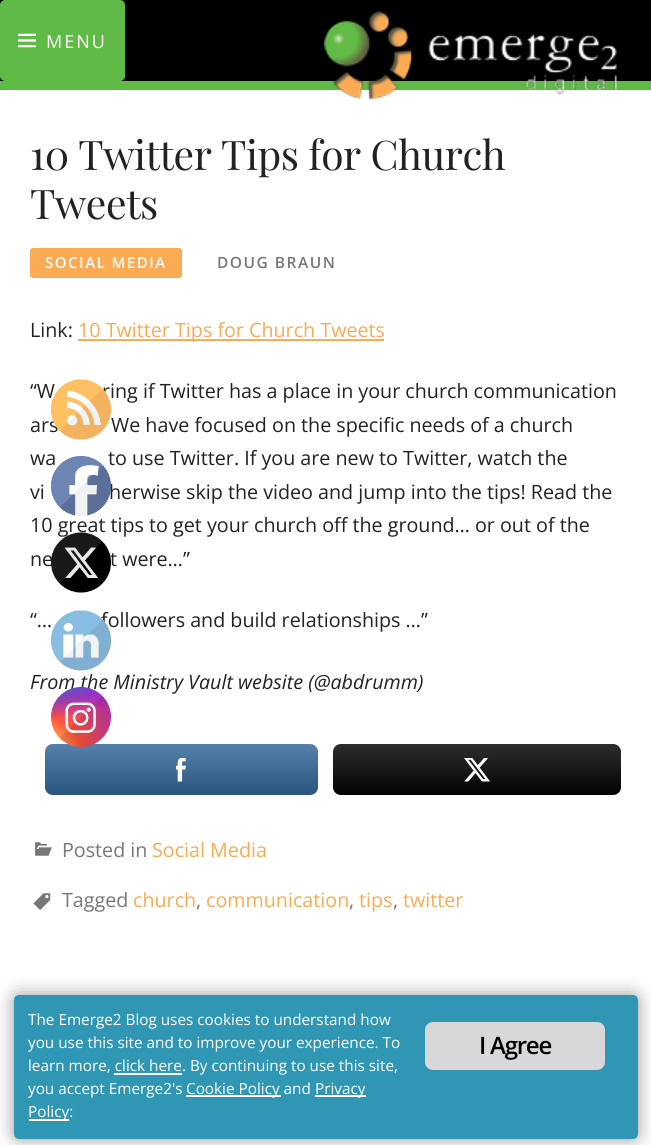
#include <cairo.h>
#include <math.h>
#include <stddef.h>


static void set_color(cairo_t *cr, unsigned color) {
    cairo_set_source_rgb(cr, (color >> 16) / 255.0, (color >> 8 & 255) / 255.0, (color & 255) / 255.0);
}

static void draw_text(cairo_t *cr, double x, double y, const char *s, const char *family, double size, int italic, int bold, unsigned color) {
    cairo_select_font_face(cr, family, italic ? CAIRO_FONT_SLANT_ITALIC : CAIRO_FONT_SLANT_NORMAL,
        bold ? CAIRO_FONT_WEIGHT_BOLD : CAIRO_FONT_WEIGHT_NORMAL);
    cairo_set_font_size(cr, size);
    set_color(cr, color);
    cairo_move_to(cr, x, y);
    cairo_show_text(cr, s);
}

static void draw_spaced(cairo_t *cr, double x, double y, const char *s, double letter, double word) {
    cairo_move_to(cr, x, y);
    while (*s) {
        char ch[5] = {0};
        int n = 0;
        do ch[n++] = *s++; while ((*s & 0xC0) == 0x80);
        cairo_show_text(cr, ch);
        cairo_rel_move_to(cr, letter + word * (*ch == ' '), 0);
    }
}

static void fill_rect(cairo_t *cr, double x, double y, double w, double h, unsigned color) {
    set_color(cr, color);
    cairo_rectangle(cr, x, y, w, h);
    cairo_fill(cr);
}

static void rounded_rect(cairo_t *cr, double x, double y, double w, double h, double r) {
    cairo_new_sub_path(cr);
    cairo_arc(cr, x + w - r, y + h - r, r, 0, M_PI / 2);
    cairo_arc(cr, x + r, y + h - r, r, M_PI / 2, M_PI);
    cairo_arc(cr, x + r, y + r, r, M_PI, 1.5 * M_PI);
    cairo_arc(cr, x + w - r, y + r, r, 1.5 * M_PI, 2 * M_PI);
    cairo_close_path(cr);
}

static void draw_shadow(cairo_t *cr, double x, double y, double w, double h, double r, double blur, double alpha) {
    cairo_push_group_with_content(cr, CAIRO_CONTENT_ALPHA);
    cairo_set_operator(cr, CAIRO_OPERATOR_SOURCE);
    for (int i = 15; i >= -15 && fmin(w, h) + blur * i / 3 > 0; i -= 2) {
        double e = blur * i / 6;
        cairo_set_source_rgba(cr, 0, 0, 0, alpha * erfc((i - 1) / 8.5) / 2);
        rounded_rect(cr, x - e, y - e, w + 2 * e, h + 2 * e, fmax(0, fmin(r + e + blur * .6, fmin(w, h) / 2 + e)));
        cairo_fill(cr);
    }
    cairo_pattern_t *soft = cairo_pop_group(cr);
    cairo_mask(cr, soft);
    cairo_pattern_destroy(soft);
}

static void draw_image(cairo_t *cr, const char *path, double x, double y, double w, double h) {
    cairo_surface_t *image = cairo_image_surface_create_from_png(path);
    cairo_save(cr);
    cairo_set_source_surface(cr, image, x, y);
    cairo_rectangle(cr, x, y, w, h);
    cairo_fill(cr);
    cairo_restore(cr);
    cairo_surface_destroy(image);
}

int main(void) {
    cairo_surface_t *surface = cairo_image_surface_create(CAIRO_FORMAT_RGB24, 651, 1145);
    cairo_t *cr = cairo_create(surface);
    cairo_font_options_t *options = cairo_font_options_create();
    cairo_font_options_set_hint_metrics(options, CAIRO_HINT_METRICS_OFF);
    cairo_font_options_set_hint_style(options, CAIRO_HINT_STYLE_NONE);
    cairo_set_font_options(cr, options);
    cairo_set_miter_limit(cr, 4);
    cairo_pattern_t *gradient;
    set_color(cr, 0xFFFFFF);
    cairo_paint(cr);
    fill_rect(cr, 0, 0, 651, 81, 0x000000);
    fill_rect(cr, 0, 81, 651, 9, 0x60BB46);
    rounded_rect(cr, 0, 0, 125, 81, 5);
    cairo_fill(cr);
    draw_image(cr, "assets/img1.png", 18, 33, 18, 15);
    cairo_select_font_face(cr, "Open Sans", CAIRO_FONT_SLANT_NORMAL, CAIRO_FONT_WEIGHT_NORMAL);
    cairo_set_font_size(cr, 18);
    set_color(cr, 0xFFFFFF);
    draw_spaced(cr, 46, 48, "MENU", 2, 0);
    draw_image(cr, "assets/img2.png", 323, 10, 294, 90);
    cairo_select_font_face(cr, "Playfair Display", CAIRO_FONT_SLANT_NORMAL, CAIRO_FONT_WEIGHT_NORMAL);
    cairo_set_font_size(cr, 40.75);
    set_color(cr, 0x222222);
    draw_spaced(cr, 30, 170, "10 Twitter Tips for Church", -0.45, 0);
    draw_spaced(cr, 30, 219, "Tweets", -0.45, 0);
    set_color(cr, 0xFAAB53);
    rounded_rect(cr, 30, 248, 152, 30, 3);
    cairo_fill(cr);
    cairo_select_font_face(cr, "Open Sans SemiBold", CAIRO_FONT_SLANT_NORMAL, CAIRO_FONT_WEIGHT_NORMAL);
    cairo_set_font_size(cr, 15);
    set_color(cr, 0xFFFFFF);
    draw_spaced(cr, 45, 268, "SOCIAL MEDIA", 1.5, 0);
    cairo_set_font_size(cr, 15.5);
    set_color(cr, 0x777777);
    draw_spaced(cr, 217, 268, "DOUG BRAUN", 1.5, 0);
    draw_text(cr, 30, 337, "Link:", "Open Sans", 19.7, 0, 0, 0x222222);
    fill_rect(cr, 78, 339, 306, 2, 0xFAAB53);
    draw_text(cr, 78, 337, "10 Twitter Tips for Church Tweets", "Open Sans", 19.7, 0, 0, 0xFAAB53);
    draw_text(cr, 30, 398, "“W", "Open Sans", 19.7, 0, 0, 0x222222);
    draw_text(cr, 102, 398, "ring if Twitter has a place in your church communication", "Open Sans", 19.7, 0, 0, 0x222222);
    draw_text(cr, 30, 432, "ars", "Open Sans", 19.7, 0, 0, 0x222222);
    draw_text(cr, 111, 432, "We have focused on the specific needs of a church", "Open Sans", 19.7, 0, 0, 0x222222);
    draw_text(cr, 30, 465, "wa", "Open Sans", 19.7, 0, 0, 0x222222);
    draw_text(cr, 108, 465, "to use Twitter. If you are new to Twitter, watch the", "Open Sans", 19.7, 0, 0, 0x222222);
    draw_text(cr, 30, 499, "vi", "Open Sans", 19.7, 0, 0, 0x222222);
    draw_text(cr, 109, 499, "herwise skip the video and jump into the tips! Read the", "Open Sans", 19.7, 0, 0, 0x222222);
    draw_text(cr, 30, 532, "10 great tips to get your church off the ground… or out of the", "Open Sans", 19.7, 0, 0, 0x222222);
    draw_text(cr, 30, 566, "ne", "Open Sans", 19.7, 0, 0, 0x222222);
    draw_text(cr, 110, 566, "t were…”", "Open Sans", 19.7, 0, 0, 0x222222);
    draw_text(cr, 30, 627, "“…", "Open Sans", 19.7, 0, 0, 0x222222);
    draw_text(cr, 101, 627, "followers and build relationships …”", "Open Sans", 19.7, 0, 0, 0x222222);
    draw_text(cr, 30, 689, "From the Ministry Vault website (@abdrumm)", "Open Sans", 19.7, 1, 0, 0x222222);
    set_color(cr, 0x336699);
    rounded_rect(cr, 45, 744, 273, 51, 8);
    cairo_fill(cr);
    gradient = cairo_pattern_create_linear(182, 795, 182, 744);
    cairo_pattern_add_color_stop_rgba(gradient, 0, 0, 0, 0, 0.17);
    cairo_pattern_add_color_stop_rgba(gradient, 1, 1, 1, 1, 0.17);
    cairo_set_source(cr, gradient);
    cairo_pattern_destroy(gradient);
    rounded_rect(cr, 45, 744, 273, 51, 8);
    cairo_fill(cr);
    draw_image(cr, "assets/img3.png", 176, 758, 10, 24);
    set_color(cr, 0x020202);
    rounded_rect(cr, 333, 744, 288, 51, 8);
    cairo_fill(cr);
    gradient = cairo_pattern_create_linear(477, 795, 477, 744);
    cairo_pattern_add_color_stop_rgba(gradient, 0, 0, 0, 0, 0.17);
    cairo_pattern_add_color_stop_rgba(gradient, 1, 1, 1, 1, 0.17);
    cairo_set_source(cr, gradient);
    cairo_pattern_destroy(gradient);
    rounded_rect(cr, 333, 744, 288, 51, 8);
    cairo_fill(cr);
    draw_image(cr, "assets/img4.png", 464, 758, 26, 24);
    draw_image(cr, "assets/img5.png", 35, 842, 17, 14);
    draw_text(cr, 62, 857, "Posted in", "Open Sans", 19.7, 0, 0, 0x777777);
    draw_text(cr, 152, 857, "Social Media", "Open Sans", 19.7, 0, 0, 0xFAAB53);
    draw_image(cr, "assets/img6.png", 33, 893, 18, 17);
    draw_text(cr, 62, 907, "Tagged", "Open Sans", 19.7, 0, 0, 0x777777);
    draw_text(cr, 133, 907, "church", "Open Sans", 19.7, 0, 0, 0xFAAB53);
    draw_text(cr, 196, 907, ",", "Open Sans", 19.7, 0, 0, 0x777777);
    draw_text(cr, 206, 907, "communication", "Open Sans", 19.7, 0, 0, 0xFAAB53);
    draw_text(cr, 349, 907, ",", "Open Sans", 19.7, 0, 0, 0x777777);
    draw_text(cr, 359, 907, "tips", "Open Sans", 19.7, 0, 0, 0xFAAB53);
    draw_text(cr, 393, 907, ",", "Open Sans", 19.7, 0, 0, 0x777777);
    draw_text(cr, 403, 907, "twitter", "Open Sans", 19.7, 0, 0, 0xFAAB53);
    draw_image(cr, "assets/img7.png", 51, 379, 60, 61);
    draw_image(cr, "assets/img8.png", 51, 456, 60, 60);
    draw_image(cr, "assets/img9.png", 51, 532, 60, 61);
    draw_image(cr, "assets/img10.png", 51, 610, 60, 61);
    draw_image(cr, "assets/img11.png", 51, 687, 60, 60);
    set_color(cr, 0x999999);
    draw_shadow(cr, 14, 995, 624, 144, 5, 9, 1);
    set_color(cr, 0x2F96B4);
    rounded_rect(cr, 14, 995, 624, 144, 5);
    cairo_fill(cr);
    draw_text(cr, 28, 1025, "The Emerge2 Blog uses cookies to understand how", "Open Sans", 15.3, 0, 0, 0xFFFFFF);
    draw_text(cr, 28, 1048, "you use this site and to improve your experience. To", "Open Sans", 15.3, 0, 0, 0xFFFFFF);
    draw_text(cr, 28, 1071, "learn more, click here. By continuing to use this site,", "Open Sans", 15.3, 0, 0, 0xFFFFFF);
    fill_rect(cr, 114, 1073, 68, 2, 0xFFFFFF);
    draw_text(cr, 28, 1094, "you accept Emerge2's", "Open Sans", 15.3, 0, 0, 0xFFFFFF);
    fill_rect(cr, 186, 1095, 95, 2, 0xFFFFFF);
    draw_text(cr, 186, 1094, "Cookie Policy and", "Open Sans", 15.3, 0, 0, 0xFFFFFF);
    fill_rect(cr, 315, 1095, 51, 2, 0xFFFFFF);
    draw_text(cr, 315, 1094, "Privacy", "Open Sans", 15.3, 0, 0, 0xFFFFFF);
    fill_rect(cr, 29, 1119, 40, 2, 0xFFFFFF);
    draw_text(cr, 28, 1117, "Policy:", "Open Sans", 15.3, 0, 0, 0xFFFFFF);
    set_color(cr, 0xD8D8D8);
    rounded_rect(cr, 425, 1022, 180, 48, 8);
    cairo_fill(cr);
    cairo_select_font_face(cr, "Open Sans SemiBold", CAIRO_FONT_SLANT_NORMAL, CAIRO_FONT_WEIGHT_NORMAL);
    cairo_set_font_size(cr, 24);
    set_color(cr, 0x000000);
    draw_spaced(cr, 479, 1054, "I Agree", -1.25, 0);
    cairo_surface_write_to_png(surface, "output.png");
    cairo_font_options_destroy(options);
    cairo_destroy(cr);
    cairo_surface_destroy(surface);
    return 0;
}
